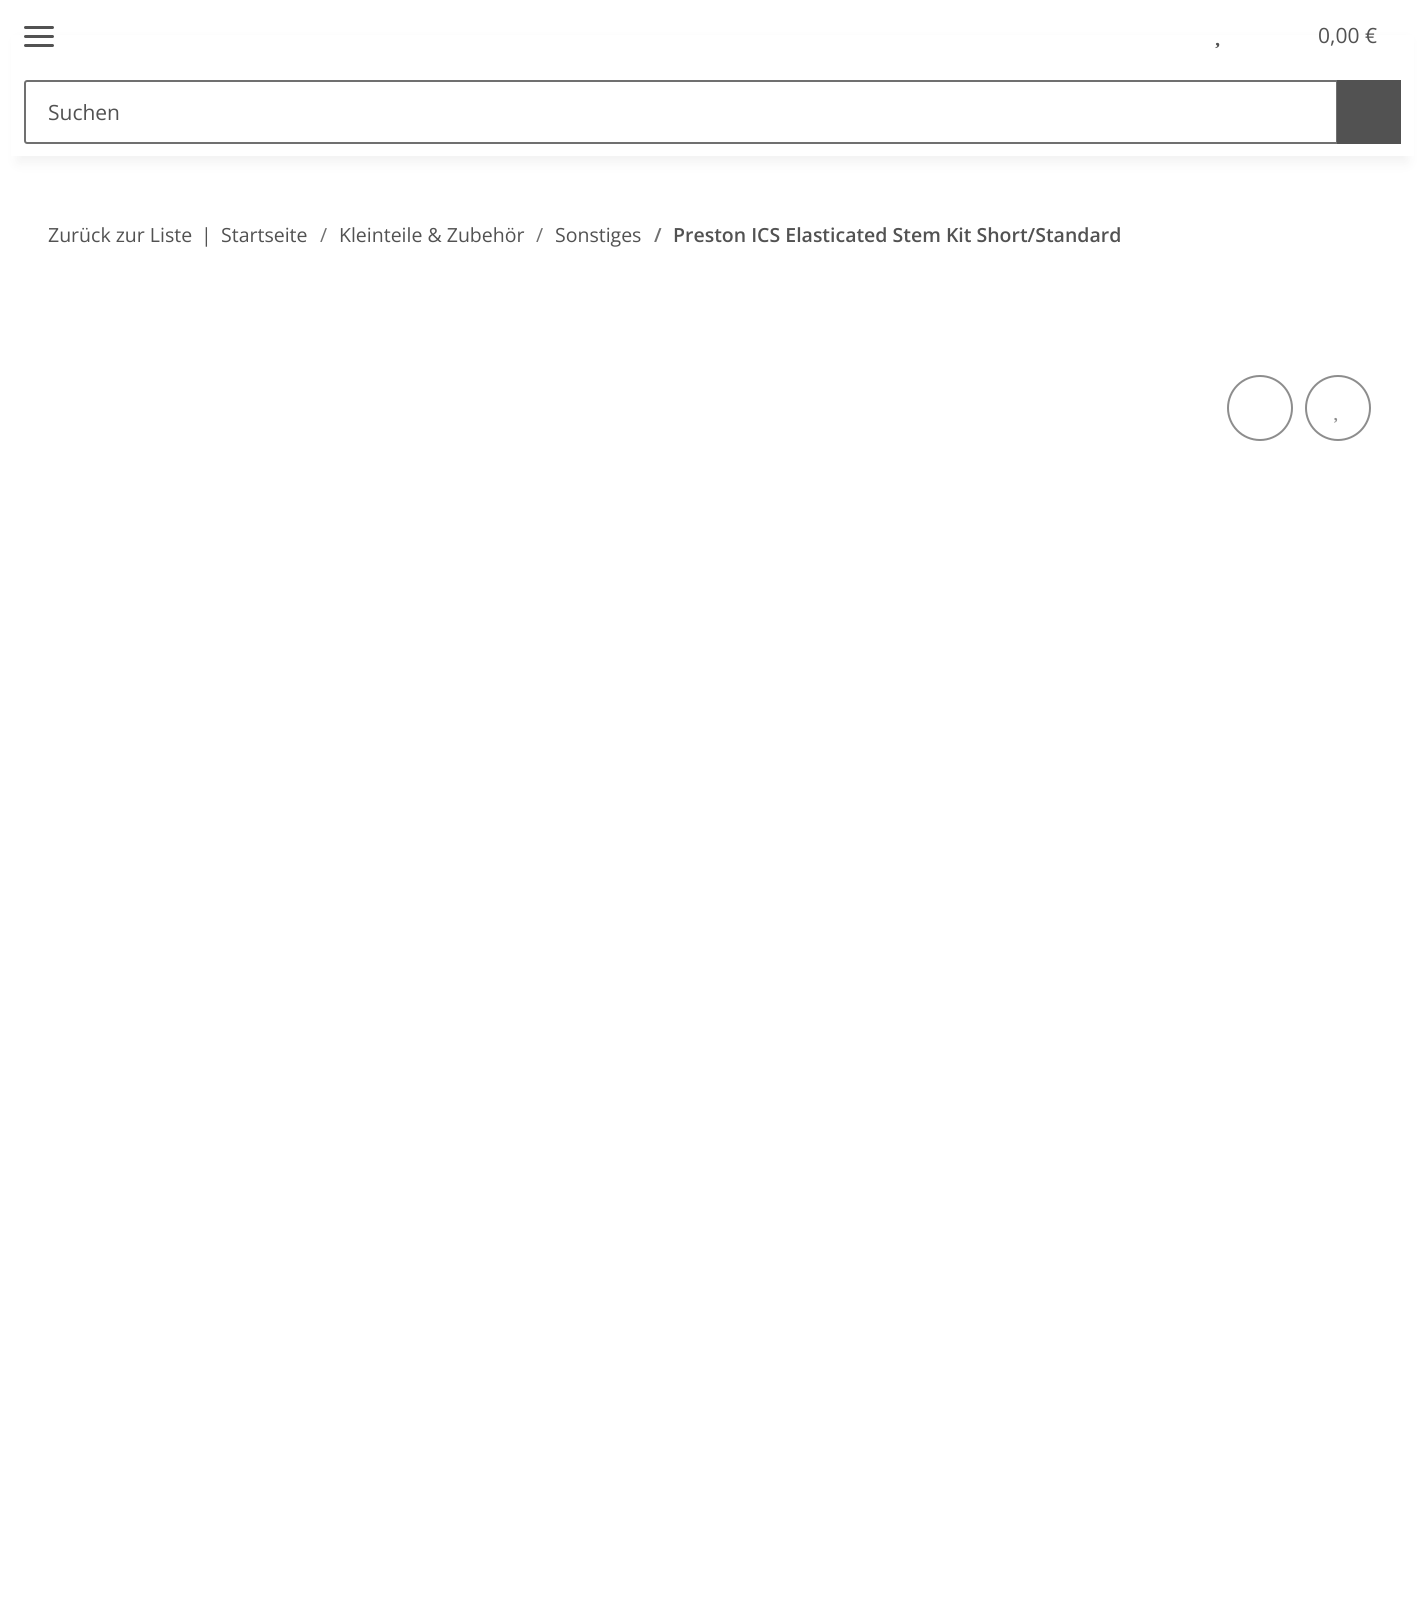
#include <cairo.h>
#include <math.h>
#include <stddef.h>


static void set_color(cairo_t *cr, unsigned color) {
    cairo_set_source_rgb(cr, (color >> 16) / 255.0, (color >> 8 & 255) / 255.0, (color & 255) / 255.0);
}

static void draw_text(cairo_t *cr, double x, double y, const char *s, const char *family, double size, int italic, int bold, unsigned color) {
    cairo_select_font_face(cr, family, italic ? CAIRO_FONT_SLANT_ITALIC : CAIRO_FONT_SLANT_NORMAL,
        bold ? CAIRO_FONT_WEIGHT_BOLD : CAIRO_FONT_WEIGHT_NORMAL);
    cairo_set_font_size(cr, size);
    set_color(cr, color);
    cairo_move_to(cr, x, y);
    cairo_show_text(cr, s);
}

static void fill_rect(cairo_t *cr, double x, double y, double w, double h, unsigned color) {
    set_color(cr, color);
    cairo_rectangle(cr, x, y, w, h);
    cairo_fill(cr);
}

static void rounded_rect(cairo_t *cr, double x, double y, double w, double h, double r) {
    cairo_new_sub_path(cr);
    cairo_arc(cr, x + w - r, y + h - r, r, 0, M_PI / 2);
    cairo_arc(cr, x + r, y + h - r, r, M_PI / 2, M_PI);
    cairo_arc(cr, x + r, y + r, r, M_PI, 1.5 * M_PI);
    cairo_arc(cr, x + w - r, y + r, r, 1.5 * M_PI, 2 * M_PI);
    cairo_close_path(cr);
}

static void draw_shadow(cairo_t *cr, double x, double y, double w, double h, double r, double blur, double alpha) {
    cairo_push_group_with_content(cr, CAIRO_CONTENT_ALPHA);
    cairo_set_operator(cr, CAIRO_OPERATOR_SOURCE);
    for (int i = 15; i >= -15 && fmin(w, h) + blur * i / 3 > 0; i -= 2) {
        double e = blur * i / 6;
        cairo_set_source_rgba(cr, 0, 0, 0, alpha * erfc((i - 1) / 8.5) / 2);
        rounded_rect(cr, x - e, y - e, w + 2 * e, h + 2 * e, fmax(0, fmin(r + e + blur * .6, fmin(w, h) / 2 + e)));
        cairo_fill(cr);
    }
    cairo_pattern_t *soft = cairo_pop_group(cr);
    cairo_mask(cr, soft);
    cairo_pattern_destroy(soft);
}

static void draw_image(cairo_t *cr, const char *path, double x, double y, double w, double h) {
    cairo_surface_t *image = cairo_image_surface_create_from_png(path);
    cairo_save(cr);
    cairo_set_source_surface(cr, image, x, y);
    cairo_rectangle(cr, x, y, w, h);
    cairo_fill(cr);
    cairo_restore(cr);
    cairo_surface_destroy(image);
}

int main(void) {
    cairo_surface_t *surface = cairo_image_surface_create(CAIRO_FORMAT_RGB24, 1425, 1603);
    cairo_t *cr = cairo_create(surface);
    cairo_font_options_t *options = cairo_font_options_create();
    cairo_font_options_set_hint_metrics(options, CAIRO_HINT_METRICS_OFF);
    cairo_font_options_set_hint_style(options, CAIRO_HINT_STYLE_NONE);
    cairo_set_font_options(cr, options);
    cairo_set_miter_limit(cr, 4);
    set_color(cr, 0xFFFFFF);
    cairo_paint(cr);
    set_color(cr, 0x000000);
    draw_shadow(cr, 18, 42, 1389, 120, 0, 7, 0.06);
    fill_rect(cr, 11, 35, 1403, 121, 0xFFFFFF);
    set_color(cr, 0x525252);
    rounded_rect(cr, 24, 35, 30, 3, 1.5);
    cairo_fill(cr);
    rounded_rect(cr, 24, 26, 30, 3, 1.5);
    cairo_fill(cr);
    rounded_rect(cr, 24, 44, 30, 3, 1.5);
    cairo_fill(cr);
    draw_image(cr, "assets/img1.png", 1215, 42, 5, 7);
    draw_text(cr, 1318, 43, "0,00 €", "Open Sans", 21, 0, 0, 0x525252);
    cairo_new_path(cr);
    cairo_move_to(cr, 27, 81);
    cairo_line_to(cr, 1337, 81);
    cairo_line_to(cr, 1337, 143);
    cairo_line_to(cr, 27, 143);
    cairo_curve_to(cr, 26, 143, 25, 142, 25, 141);
    cairo_line_to(cr, 25, 83);
    cairo_curve_to(cr, 25, 82, 26, 81, 27, 81);
    cairo_close_path(cr);
    set_color(cr, 0x707070);
    cairo_stroke(cr);
    draw_text(cr, 48, 120, "Suchen", "Open Sans", 21, 0, 0, 0x525252);
    fill_rect(cr, 1337, 80, 64, 64, 0x525252);
    draw_text(cr, 48, 242, "Zurück zur Liste", "Open Sans", 19.5, 0, 0, 0x525252);
    draw_text(cr, 201, 242, "|", "Open Sans", 19.5, 0, 0, 0x525252);
    draw_text(cr, 221, 242, "Startseite", "Open Sans", 19.5, 0, 0, 0x525252);
    draw_text(cr, 320, 242, "/", "Open Sans", 19.5, 0, 0, 0x707070);
    draw_text(cr, 339, 242, "Kleinteile & Zubehör", "Open Sans", 19.5, 0, 0, 0x525252);
    draw_text(cr, 536, 242, "/", "Open Sans", 19.5, 0, 0, 0x707070);
    draw_text(cr, 555, 242, "Sonstiges", "Open Sans", 19.5, 0, 0, 0x525252);
    draw_text(cr, 654, 242, "/", "Open Sans SemiBold", 19.5, 0, 0, 0x707070);
    draw_text(cr, 673, 242, "Preston ICS Elasticated Stem Kit Short/Standard", "Open Sans SemiBold", 19.5, 0, 0, 0x525252);
    cairo_new_path(cr);
    cairo_arc(cr, 1260, 408, 32, 0, 2 * M_PI);
    set_color(cr, 0x8D8D8D);
    cairo_stroke(cr);
    cairo_arc(cr, 1338, 408, 32, 0, 2 * M_PI);
    cairo_stroke(cr);
    draw_image(cr, "assets/img2.png", 1334, 417, 4, 6);
    cairo_surface_write_to_png(surface, "output.png");
    cairo_font_options_destroy(options);
    cairo_destroy(cr);
    cairo_surface_destroy(surface);
    return 0;
}
